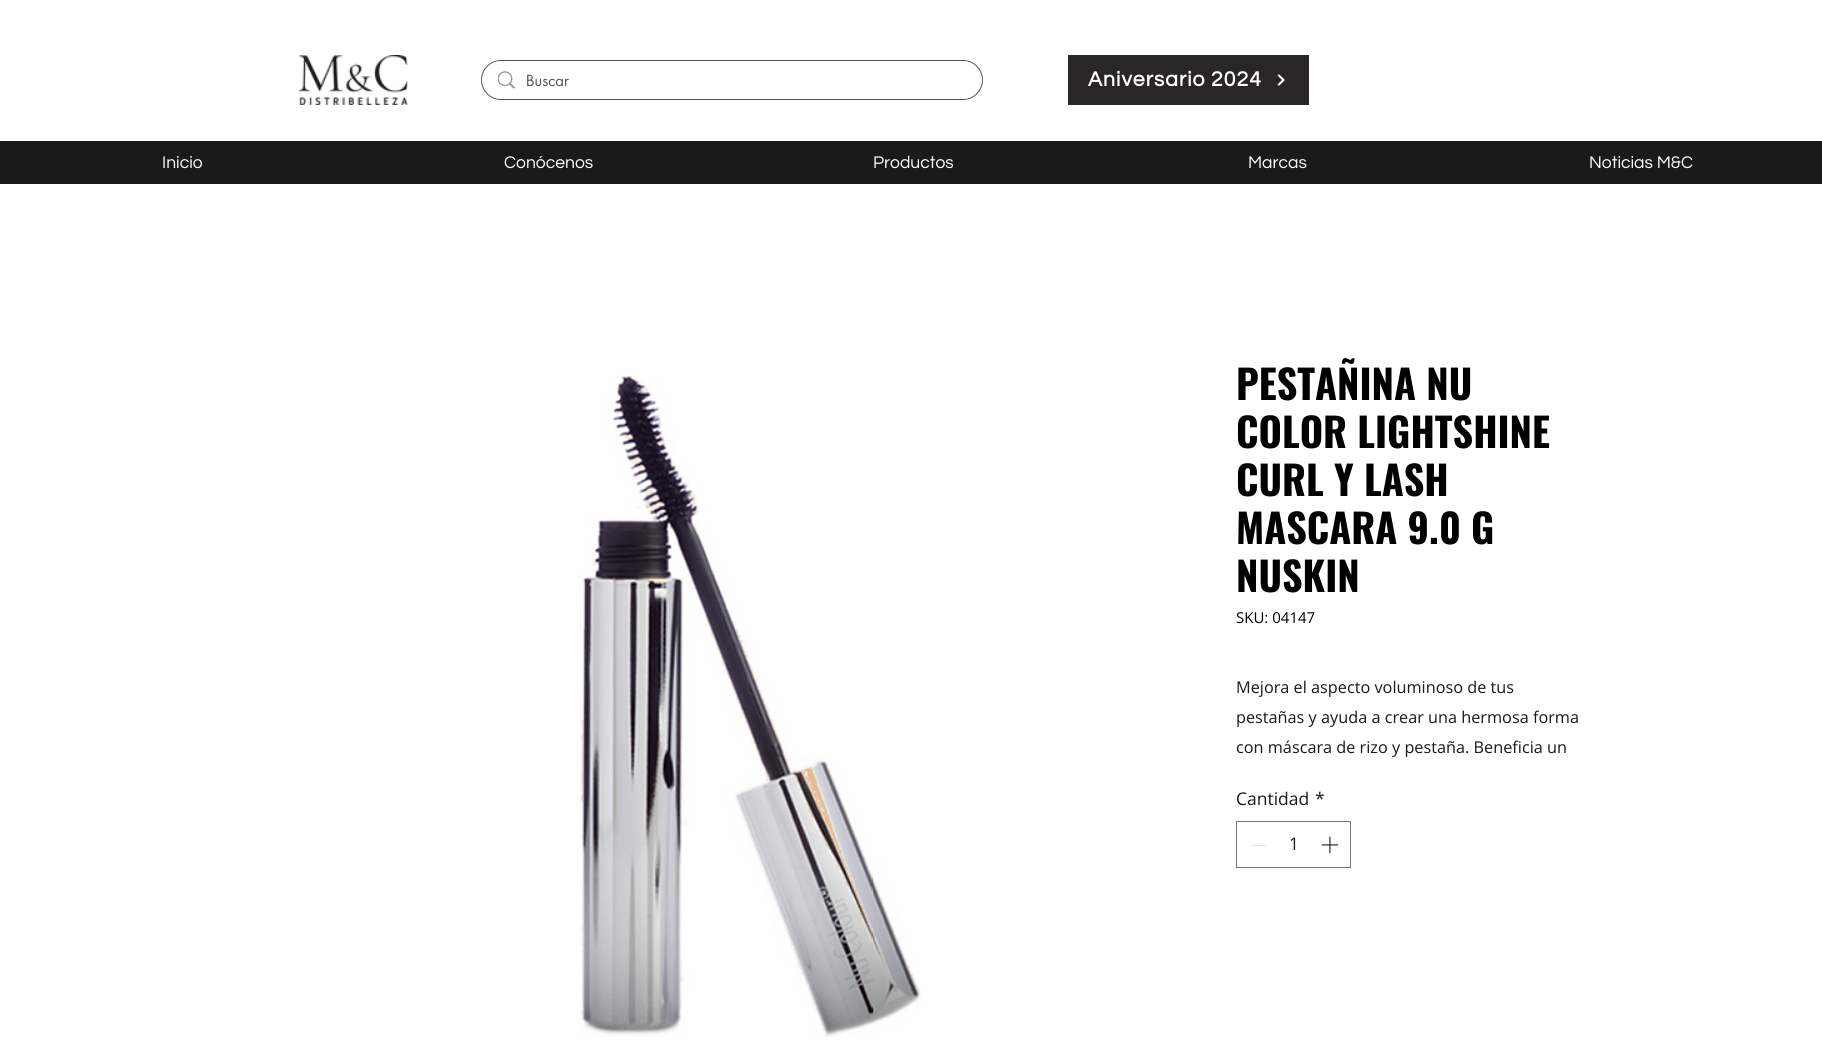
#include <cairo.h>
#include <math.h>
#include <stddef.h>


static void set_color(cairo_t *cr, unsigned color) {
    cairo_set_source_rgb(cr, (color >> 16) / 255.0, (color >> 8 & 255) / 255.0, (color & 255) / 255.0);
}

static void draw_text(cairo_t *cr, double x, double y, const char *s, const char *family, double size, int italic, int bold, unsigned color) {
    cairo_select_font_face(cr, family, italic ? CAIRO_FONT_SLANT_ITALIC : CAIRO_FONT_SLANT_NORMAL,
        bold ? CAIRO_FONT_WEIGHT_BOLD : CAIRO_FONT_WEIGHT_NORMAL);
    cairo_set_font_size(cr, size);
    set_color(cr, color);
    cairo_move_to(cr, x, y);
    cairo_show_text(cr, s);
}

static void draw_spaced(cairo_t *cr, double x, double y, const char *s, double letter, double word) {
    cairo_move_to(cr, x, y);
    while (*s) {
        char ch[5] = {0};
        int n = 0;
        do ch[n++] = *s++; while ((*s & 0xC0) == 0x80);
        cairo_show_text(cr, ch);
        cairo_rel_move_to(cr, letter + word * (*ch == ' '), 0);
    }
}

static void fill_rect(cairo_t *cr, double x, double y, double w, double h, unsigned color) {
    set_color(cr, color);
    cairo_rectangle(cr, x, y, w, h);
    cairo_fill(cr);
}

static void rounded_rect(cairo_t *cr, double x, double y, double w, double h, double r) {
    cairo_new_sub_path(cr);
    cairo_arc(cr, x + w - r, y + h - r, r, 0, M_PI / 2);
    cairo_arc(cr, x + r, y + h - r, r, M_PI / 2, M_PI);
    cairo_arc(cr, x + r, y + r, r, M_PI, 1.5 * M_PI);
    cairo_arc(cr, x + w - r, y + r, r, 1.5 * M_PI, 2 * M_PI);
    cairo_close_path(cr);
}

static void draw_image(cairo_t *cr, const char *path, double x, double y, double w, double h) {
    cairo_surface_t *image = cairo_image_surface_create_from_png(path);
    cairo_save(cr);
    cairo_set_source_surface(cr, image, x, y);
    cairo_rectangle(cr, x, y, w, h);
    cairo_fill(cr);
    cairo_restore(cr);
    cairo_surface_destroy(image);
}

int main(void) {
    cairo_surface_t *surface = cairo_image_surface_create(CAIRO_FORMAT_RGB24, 1822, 1051);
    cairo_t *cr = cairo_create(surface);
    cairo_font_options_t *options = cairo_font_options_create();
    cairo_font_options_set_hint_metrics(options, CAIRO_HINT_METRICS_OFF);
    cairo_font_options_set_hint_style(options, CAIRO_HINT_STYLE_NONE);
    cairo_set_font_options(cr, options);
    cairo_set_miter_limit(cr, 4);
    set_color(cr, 0xFFFFFF);
    cairo_paint(cr);
    draw_image(cr, "assets/img1.png", 298, 55, 110, 50);
    rounded_rect(cr, 481.5, 60.5, 501, 39, 19.5);
    set_color(cr, 0x565656);
    cairo_set_line_width(cr, 1);
    cairo_stroke(cr);
    set_color(cr, 0xFFFFFF);
    rounded_rect(cr, 483, 61, 498, 38, 19);
    cairo_fill(cr);
    draw_image(cr, "assets/img2.png", 498, 71, 17, 18);
    draw_text(cr, 526, 86, "Buscar", "futura", 15, 0, 0, 0x565656);
    fill_rect(cr, 1068, 55, 241, 50, 0x282626);
    cairo_select_font_face(cr, "Questrial", CAIRO_FONT_SLANT_NORMAL, CAIRO_FONT_WEIGHT_BOLD);
    cairo_set_font_size(cr, 21.25);
    set_color(cr, 0xFFFFFF);
    draw_spaced(cr, 1088, 86, "Aniversario 2024", 1, 0);
    draw_image(cr, "assets/img3.png", 1277, 74, 8, 12);
    fill_rect(cr, 0, 141, 1822, 43, 0x1A1A1A);
    draw_text(cr, 162, 168, "Inicio", "Questrial", 17.5, 0, 0, 0xFFFFFF);
    draw_text(cr, 504, 168, "Conócenos", "Questrial", 17.5, 0, 0, 0xFFFFFF);
    draw_text(cr, 873, 168, "Productos", "Questrial", 17.5, 0, 0, 0xFFFFFF);
    draw_text(cr, 1248, 168, "Marcas", "Questrial", 17.5, 0, 0, 0xFFFFFF);
    draw_text(cr, 1589, 168, "Noticias M&C", "Questrial", 17.5, 0, 0, 0xFFFFFF);
    draw_image(cr, "assets/img4.png", 579, 375, 342, 662);
    draw_text(cr, 1236, 400, "PESTAÑINA NU", "Oswald", 40, 0, 1, 0x000000);
    draw_text(cr, 1236, 448, "COLOR LIGHTSHINE", "Oswald", 40, 0, 1, 0x000000);
    draw_text(cr, 1236, 496, "CURL Y LASH", "Oswald", 40, 0, 1, 0x000000);
    draw_text(cr, 1236, 544, "MASCARA 9.0 G", "Oswald", 40, 0, 1, 0x000000);
    draw_text(cr, 1236, 592, "NUSKIN", "Oswald", 40, 0, 1, 0x000000);
    draw_text(cr, 1236, 623, "SKU: 04147", "Open Sans", 15, 0, 0, 0x000000);
    draw_text(cr, 1236, 693, "Mejora el aspecto voluminoso de tus", "Open Sans", 16.25, 0, 0, 0x1A1A1A);
    draw_text(cr, 1236, 723, "pestañas y ayuda a crear una hermosa forma", "Open Sans", 16.25, 0, 0, 0x1A1A1A);
    draw_text(cr, 1236, 753, "con máscara de rizo y pestaña. Beneficia un", "Open Sans", 16.25, 0, 0, 0x1A1A1A);
    draw_text(cr, 1236, 805, "Cantidad", "Open Sans", 17.5, 0, 0, 0x1A1A1A);
    draw_text(cr, 1315, 805, "*", "Open Sans", 17.5, 0, 0, 0x1A1A1A);
    cairo_rectangle(cr, 1236.5, 821.5, 114, 46);
    set_color(cr, 0x767676);
    cairo_stroke(cr);
    fill_rect(cr, 1251, 845, 16, 1, 0xE3E3E3);
    draw_text(cr, 1289, 850, "1", "Open Sans", 17.5, 0, 0, 0x1A1A1A);
    draw_image(cr, "assets/img5.png", 1321, 836, 18, 18);
    cairo_surface_write_to_png(surface, "output.png");
    cairo_font_options_destroy(options);
    cairo_destroy(cr);
    cairo_surface_destroy(surface);
    return 0;
}
